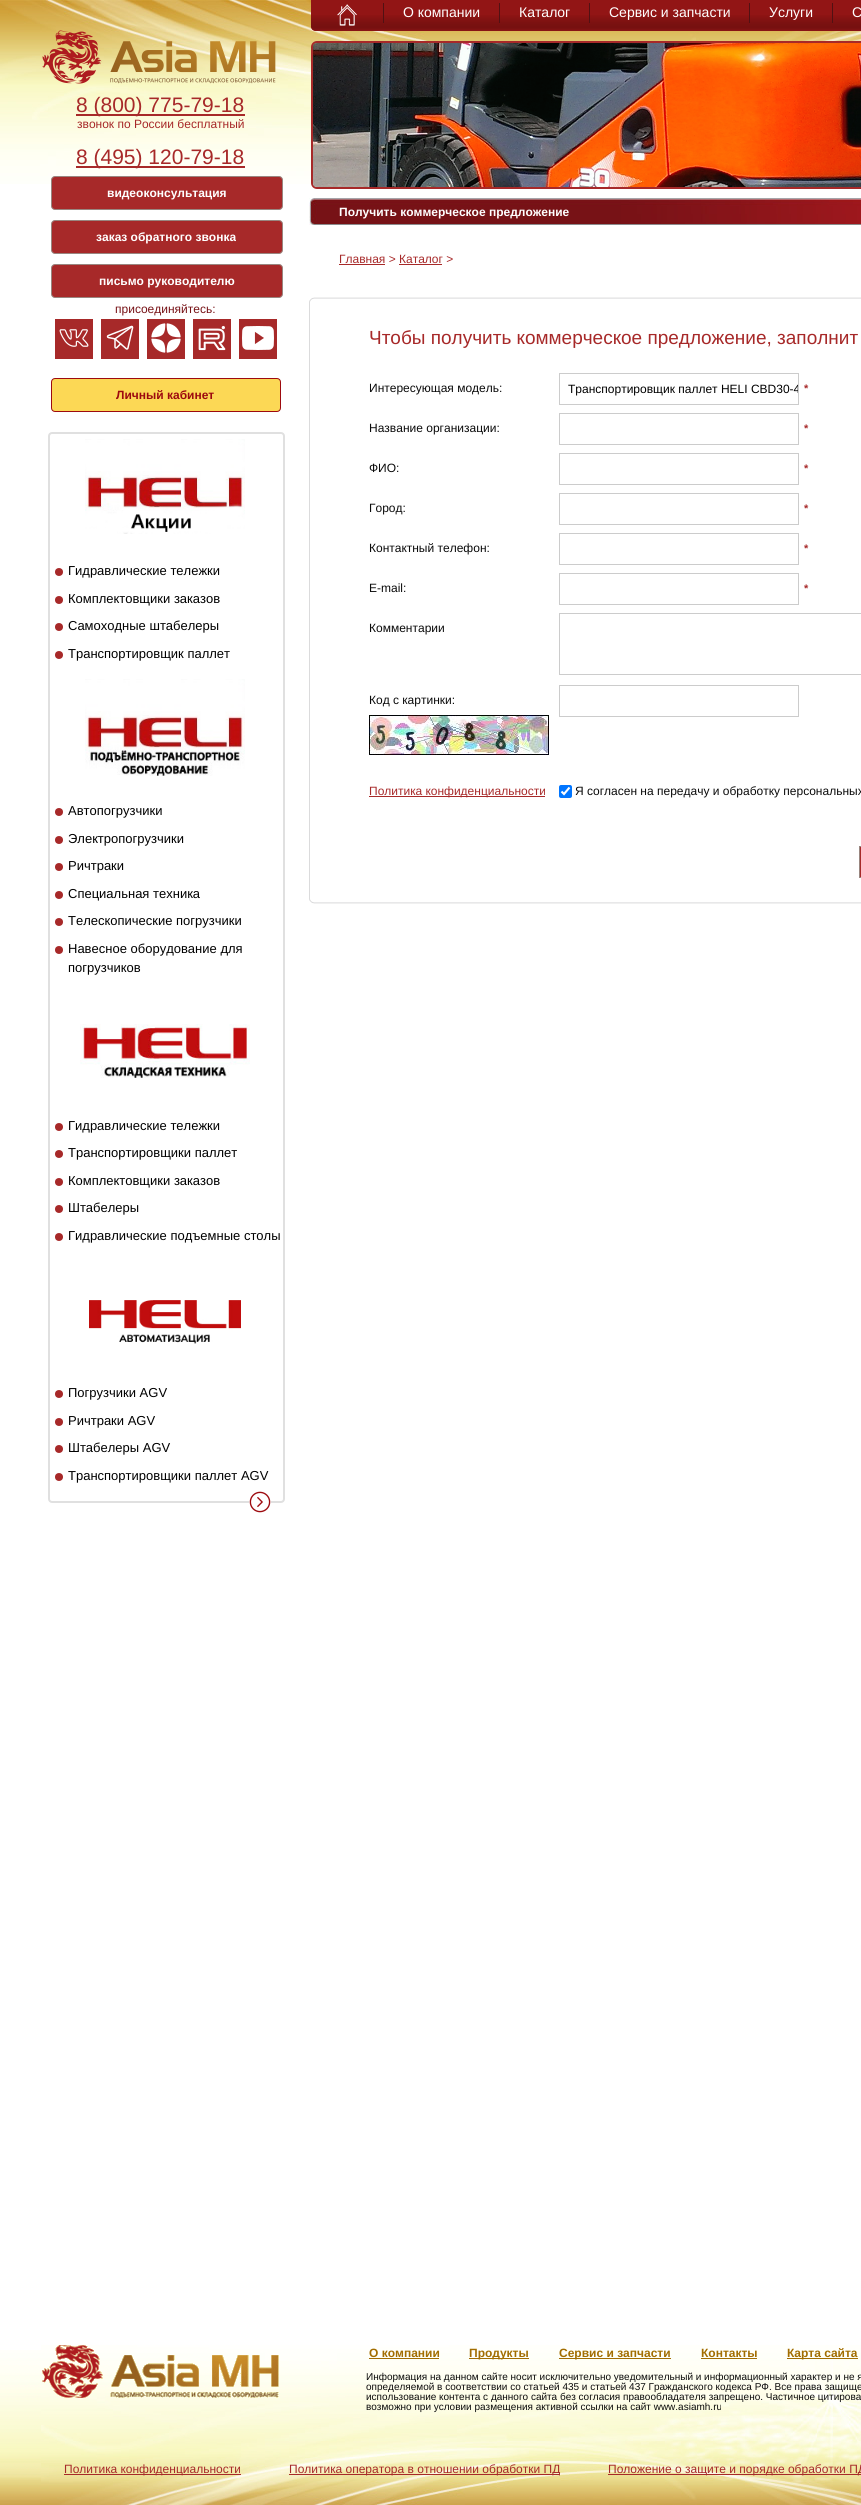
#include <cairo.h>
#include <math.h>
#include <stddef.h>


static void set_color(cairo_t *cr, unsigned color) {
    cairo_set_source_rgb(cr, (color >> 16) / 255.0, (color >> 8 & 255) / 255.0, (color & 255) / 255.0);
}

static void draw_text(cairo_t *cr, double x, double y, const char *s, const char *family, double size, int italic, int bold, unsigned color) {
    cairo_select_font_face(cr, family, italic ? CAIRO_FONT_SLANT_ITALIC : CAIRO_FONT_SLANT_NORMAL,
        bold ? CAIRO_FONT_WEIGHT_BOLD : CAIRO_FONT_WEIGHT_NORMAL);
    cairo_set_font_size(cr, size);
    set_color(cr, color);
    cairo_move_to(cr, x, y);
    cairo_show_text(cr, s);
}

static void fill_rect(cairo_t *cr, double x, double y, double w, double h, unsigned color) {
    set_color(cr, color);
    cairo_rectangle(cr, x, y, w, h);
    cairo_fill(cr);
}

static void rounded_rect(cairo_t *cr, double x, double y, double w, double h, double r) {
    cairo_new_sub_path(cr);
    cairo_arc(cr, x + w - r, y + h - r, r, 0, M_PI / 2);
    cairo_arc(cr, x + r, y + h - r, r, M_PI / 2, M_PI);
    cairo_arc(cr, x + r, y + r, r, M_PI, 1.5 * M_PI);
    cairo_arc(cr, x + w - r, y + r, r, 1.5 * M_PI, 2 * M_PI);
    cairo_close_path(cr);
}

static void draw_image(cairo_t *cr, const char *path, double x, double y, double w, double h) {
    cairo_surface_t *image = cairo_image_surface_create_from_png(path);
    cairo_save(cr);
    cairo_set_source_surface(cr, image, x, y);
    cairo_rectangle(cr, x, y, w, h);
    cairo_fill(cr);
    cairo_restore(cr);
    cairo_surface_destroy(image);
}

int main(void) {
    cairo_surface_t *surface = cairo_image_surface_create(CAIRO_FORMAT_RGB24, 861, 2505);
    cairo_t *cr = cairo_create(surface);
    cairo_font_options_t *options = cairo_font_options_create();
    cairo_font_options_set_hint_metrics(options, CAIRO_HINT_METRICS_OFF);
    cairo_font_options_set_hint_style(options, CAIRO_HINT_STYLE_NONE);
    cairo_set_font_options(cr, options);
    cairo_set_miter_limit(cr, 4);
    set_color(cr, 0xFFFFFF);
    cairo_paint(cr);
    draw_image(cr, "assets/img1.png", 0, 0, 861, 184);
    set_color(cr, 0x921515);
    cairo_new_path(cr);
    cairo_move_to(cr, 311, 0);
    cairo_line_to(cr, 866, 0);
    cairo_line_to(cr, 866, 26);
    cairo_curve_to(cr, 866, 29, 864, 31, 861, 31);
    cairo_line_to(cr, 316, 31);
    cairo_curve_to(cr, 313, 31, 311, 29, 311, 26);
    cairo_close_path(cr);
    cairo_fill(cr);
    draw_image(cr, "assets/img2.png", 311, 15, 550, 16);
    draw_image(cr, "assets/img3.png", 337, 4, 20, 22);
    fill_rect(cr, 383, 3, 1, 20, 0x511113);
    draw_text(cr, 403, 17, "О компании", "Liberation Sans", 14, 0, 0, 0xFFFFFF);
    fill_rect(cr, 499, 3, 1, 20, 0x511113);
    draw_text(cr, 519, 17, "Каталог", "Liberation Sans", 14, 0, 0, 0xFFFFFF);
    fill_rect(cr, 589, 3, 1, 20, 0x511113);
    draw_text(cr, 609, 17, "Сервис и запчасти", "Liberation Sans", 14, 0, 0, 0xFFFFFF);
    fill_rect(cr, 749, 3, 1, 20, 0x511113);
    draw_text(cr, 769, 17, "Услуги", "Liberation Sans", 14, 0, 0, 0xFFFFFF);
    fill_rect(cr, 832, 3, 1, 20, 0x511113);
    draw_text(cr, 852, 17, "С", "Liberation Sans", 14, 0, 0, 0xFFFFFF);
    rounded_rect(cr, 312, 42, 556, 146, 5);
    set_color(cr, 0xA72929);
    cairo_stroke(cr);
    draw_image(cr, "assets/img4.png", 313, 43, 548, 144);
    draw_image(cr, "assets/img5.png", 42, 30, 234, 54);
    fill_rect(cr, 76, 114, 169, 2, 0xA72929);
    draw_text(cr, 76, 112, "8 (800) 775-79-18", "Liberation Sans", 21, 0, 0, 0xA72929);
    draw_text(cr, 77, 128, "звонок по России бесплатный", "Liberation Sans", 12, 0, 0, 0xA72929);
    fill_rect(cr, 76, 166, 169, 2, 0xA72929);
    draw_text(cr, 76, 164, "8 (495) 120-79-18", "Liberation Sans", 21, 0, 0, 0xA72929);
    rounded_rect(cr, 51.5, 176.5, 231, 33, 3.5);
    cairo_fill_preserve(cr);
    set_color(cr, 0x998680);
    cairo_set_line_width(cr, 1);
    cairo_stroke(cr);
    draw_text(cr, 107, 197, "видеоконсультация", "Liberation Sans", 12, 0, 1, 0xFFFFFF);
    set_color(cr, 0xA72929);
    rounded_rect(cr, 51.5, 220.5, 231, 33, 3.5);
    cairo_fill_preserve(cr);
    set_color(cr, 0x998680);
    cairo_stroke(cr);
    draw_text(cr, 96, 241, "заказ обратного звонка", "Liberation Sans", 12, 0, 1, 0xFFFFFF);
    set_color(cr, 0xA72929);
    rounded_rect(cr, 51.5, 264.5, 231, 33, 3.5);
    cairo_fill_preserve(cr);
    set_color(cr, 0x998680);
    cairo_stroke(cr);
    draw_text(cr, 99, 285, "письмо руководителю", "Liberation Sans", 12, 0, 1, 0xFFFFFF);
    draw_text(cr, 115, 313, "присоединяйтесь:", "Liberation Sans", 12, 0, 0, 0x771216);
    fill_rect(cr, 55, 319, 38, 40, 0xA72929);
    draw_image(cr, "assets/img6.png", 59, 329, 30, 18);
    fill_rect(cr, 101, 319, 38, 40, 0xA72929);
    draw_image(cr, "assets/img7.png", 106, 325, 28, 25);
    fill_rect(cr, 147, 319, 38, 40, 0xA72929);
    draw_image(cr, "assets/img8.png", 151, 323, 30, 30);
    fill_rect(cr, 193, 319, 38, 40, 0xA72929);
    draw_image(cr, "assets/img9.png", 198, 325, 28, 26);
    fill_rect(cr, 239, 319, 38, 40, 0xA72929);
    draw_image(cr, "assets/img10.png", 242, 326, 32, 24);
    set_color(cr, 0xFCD855);
    rounded_rect(cr, 51.5, 378.5, 229, 33, 3.5);
    cairo_fill_preserve(cr);
    set_color(cr, 0x9D0A0F);
    cairo_stroke(cr);
    draw_text(cr, 116, 399, "Личный кабинет", "Liberation Sans", 12, 0, 1, 0x9D0A0F);
    rounded_rect(cr, 49, 433, 235, 1069, 3);
    set_color(cr, 0xE0E0E0);
    cairo_set_line_width(cr, 2);
    cairo_stroke(cr);
    draw_image(cr, "assets/img11.png", 85, 439, 160, 95);
    set_color(cr, 0xA72929);
    cairo_arc(cr, 59, 572, 4, 0, 2 * M_PI);
    cairo_fill(cr);
    draw_text(cr, 68, 575, "Гидравлические тележки", "Liberation Sans", 13, 0, 0, 0x000000);
    set_color(cr, 0xA72929);
    cairo_new_path(cr);
    cairo_arc(cr, 59, 600, 4, 0, 2 * M_PI);
    cairo_fill(cr);
    draw_text(cr, 68, 603, "Комплектовщики заказов", "Liberation Sans", 13, 0, 0, 0x000000);
    set_color(cr, 0xA72929);
    cairo_new_path(cr);
    cairo_arc(cr, 59, 627, 4, 0, 2 * M_PI);
    cairo_fill(cr);
    draw_text(cr, 68, 630, "Самоходные штабелеры", "Liberation Sans", 13, 0, 0, 0x000000);
    set_color(cr, 0xA72929);
    cairo_new_path(cr);
    cairo_arc(cr, 59, 655, 4, 0, 2 * M_PI);
    cairo_fill(cr);
    draw_text(cr, 68, 658, "Транспортировщик паллет", "Liberation Sans", 13, 0, 0, 0x000000);
    draw_image(cr, "assets/img12.png", 85, 679, 160, 97);
    set_color(cr, 0xA72929);
    cairo_arc(cr, 59, 812, 4, 0, 2 * M_PI);
    cairo_fill(cr);
    draw_text(cr, 68, 815, "Автопогрузчики", "Liberation Sans", 13, 0, 0, 0x000000);
    set_color(cr, 0xA72929);
    cairo_new_path(cr);
    cairo_arc(cr, 59, 840, 4, 0, 2 * M_PI);
    cairo_fill(cr);
    draw_text(cr, 68, 843, "Электропогрузчики", "Liberation Sans", 13, 0, 0, 0x000000);
    set_color(cr, 0xA72929);
    cairo_new_path(cr);
    cairo_arc(cr, 59, 867, 4, 0, 2 * M_PI);
    cairo_fill(cr);
    draw_text(cr, 68, 870, "Ричтраки", "Liberation Sans", 13, 0, 0, 0x000000);
    set_color(cr, 0xA72929);
    cairo_new_path(cr);
    cairo_arc(cr, 59, 895, 4, 0, 2 * M_PI);
    cairo_fill(cr);
    draw_text(cr, 68, 898, "Специальная техника", "Liberation Sans", 13, 0, 0, 0x000000);
    set_color(cr, 0xA72929);
    cairo_new_path(cr);
    cairo_arc(cr, 59, 922, 4, 0, 2 * M_PI);
    cairo_fill(cr);
    draw_text(cr, 68, 925, "Телескопические погрузчики", "Liberation Sans", 13, 0, 0, 0x000000);
    set_color(cr, 0xA72929);
    cairo_new_path(cr);
    cairo_arc(cr, 59, 950, 4, 0, 2 * M_PI);
    cairo_fill(cr);
    draw_text(cr, 68, 953, "Навесное оборудование для", "Liberation Sans", 13, 0, 0, 0x000000);
    draw_text(cr, 68, 972, "погрузчиков", "Liberation Sans", 13, 0, 0, 0x000000);
    draw_image(cr, "assets/img13.png", 80, 1024, 170, 54);
    set_color(cr, 0xA72929);
    cairo_arc(cr, 59, 1127, 4, 0, 2 * M_PI);
    cairo_fill(cr);
    draw_text(cr, 68, 1130, "Гидравлические тележки", "Liberation Sans", 13, 0, 0, 0x000000);
    set_color(cr, 0xA72929);
    cairo_new_path(cr);
    cairo_arc(cr, 59, 1154, 4, 0, 2 * M_PI);
    cairo_fill(cr);
    draw_text(cr, 68, 1157, "Транспортировщики паллет", "Liberation Sans", 13, 0, 0, 0x000000);
    set_color(cr, 0xA72929);
    cairo_new_path(cr);
    cairo_arc(cr, 59, 1182, 4, 0, 2 * M_PI);
    cairo_fill(cr);
    draw_text(cr, 68, 1185, "Комплектовщики заказов", "Liberation Sans", 13, 0, 0, 0x000000);
    set_color(cr, 0xA72929);
    cairo_new_path(cr);
    cairo_arc(cr, 59, 1209, 4, 0, 2 * M_PI);
    cairo_fill(cr);
    draw_text(cr, 68, 1212, "Штабелеры", "Liberation Sans", 13, 0, 0, 0x000000);
    set_color(cr, 0xA72929);
    cairo_new_path(cr);
    cairo_arc(cr, 59, 1237, 4, 0, 2 * M_PI);
    cairo_fill(cr);
    draw_text(cr, 68, 1240, "Гидравлические подъемные столы", "Liberation Sans", 13, 0, 0, 0x000000);
    draw_image(cr, "assets/img14.png", 89, 1300, 152, 44);
    set_color(cr, 0xA72929);
    cairo_arc(cr, 59, 1394, 4, 0, 2 * M_PI);
    cairo_fill(cr);
    draw_text(cr, 68, 1397, "Погрузчики AGV", "Liberation Sans", 13, 0, 0, 0x000000);
    set_color(cr, 0xA72929);
    cairo_new_path(cr);
    cairo_arc(cr, 59, 1422, 4, 0, 2 * M_PI);
    cairo_fill(cr);
    draw_text(cr, 68, 1425, "Ричтраки AGV", "Liberation Sans", 13, 0, 0, 0x000000);
    set_color(cr, 0xA72929);
    cairo_new_path(cr);
    cairo_arc(cr, 59, 1449, 4, 0, 2 * M_PI);
    cairo_fill(cr);
    draw_text(cr, 68, 1452, "Штабелеры AGV", "Liberation Sans", 13, 0, 0, 0x000000);
    set_color(cr, 0xA72929);
    cairo_new_path(cr);
    cairo_arc(cr, 59, 1477, 4, 0, 2 * M_PI);
    cairo_fill(cr);
    draw_text(cr, 68, 1480, "Транспортировщики паллет AGV", "Liberation Sans", 13, 0, 0, 0x000000);
    fill_rect(cr, 249, 1501, 22, 2, 0xFFFFFF);
    draw_image(cr, "assets/img15.png", 249, 1491, 22, 22);
    draw_image(cr, "assets/img16.png", 309, 198, 552, 27);
    draw_text(cr, 339, 216, "Получить коммерческое предложение", "Liberation Sans", 12, 0, 1, 0xFFFFFF);
    draw_text(cr, 339, 263, "Главная > Каталог >", "Liberation Sans", 12, 0, 0, 0xA72929);
    fill_rect(cr, 339, 264, 46, 1, 0xA72929);
    fill_rect(cr, 399, 264, 43, 1, 0xA72929);
    fill_rect(cr, 309, 297, 1, 607, 0xDBDBDC);
    draw_image(cr, "assets/img17.png", 309, 297, 552, 5);
    draw_text(cr, 369, 344, "Чтобы получить коммерческое предложение, заполнит", "Liberation Sans", 19, 0, 0, 0xA72929);
    draw_text(cr, 369, 392, "Интересующая модель:", "Liberation Sans", 12, 0, 0, 0x0B0B0B);
    cairo_rectangle(cr, 559.5, 373.5, 239, 31);
    set_color(cr, 0xCCCCCC);
    cairo_set_line_width(cr, 1);
    cairo_stroke(cr);
    cairo_save(cr);
    cairo_rectangle(cr, 568, 382, 230, 14);
    cairo_clip(cr);
    draw_text(cr, 568, 393, "Транспортировщик паллет HELI CBD30-4", "Liberation Sans", 12, 0, 0, 0x000000);
    cairo_restore(cr);
    draw_text(cr, 804, 392, "*", "Liberation Sans", 11, 0, 1, 0xA72929);
    draw_text(cr, 369, 432, "Название организации:", "Liberation Sans", 12, 0, 0, 0x0B0B0B);
    cairo_rectangle(cr, 559.5, 413.5, 239, 31);
    set_color(cr, 0xCCCCCC);
    cairo_stroke(cr);
    draw_text(cr, 804, 432, "*", "Liberation Sans", 11, 0, 1, 0xA72929);
    draw_text(cr, 369, 472, "ФИО:", "Liberation Sans", 12, 0, 0, 0x0B0B0B);
    cairo_rectangle(cr, 559.5, 453.5, 239, 31);
    set_color(cr, 0xCCCCCC);
    cairo_stroke(cr);
    draw_text(cr, 804, 472, "*", "Liberation Sans", 11, 0, 1, 0xA72929);
    draw_text(cr, 369, 512, "Город:", "Liberation Sans", 12, 0, 0, 0x0B0B0B);
    cairo_rectangle(cr, 559.5, 493.5, 239, 31);
    set_color(cr, 0xCCCCCC);
    cairo_stroke(cr);
    draw_text(cr, 804, 512, "*", "Liberation Sans", 11, 0, 1, 0xA72929);
    draw_text(cr, 369, 552, "Контактный телефон:", "Liberation Sans", 12, 0, 0, 0x0B0B0B);
    cairo_rectangle(cr, 559.5, 533.5, 239, 31);
    set_color(cr, 0xCCCCCC);
    cairo_stroke(cr);
    draw_text(cr, 804, 552, "*", "Liberation Sans", 11, 0, 1, 0xA72929);
    draw_text(cr, 369, 592, "E-mail:", "Liberation Sans", 12, 0, 0, 0x0B0B0B);
    cairo_rectangle(cr, 559.5, 573.5, 239, 31);
    set_color(cr, 0xCCCCCC);
    cairo_stroke(cr);
    draw_text(cr, 804, 592, "*", "Liberation Sans", 11, 0, 1, 0xA72929);
    draw_text(cr, 369, 632, "Комментарии", "Liberation Sans", 12, 0, 0, 0x0B0B0B);
    cairo_rectangle(cr, 559.5, 613.5, 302, 61);
    set_color(cr, 0xCCCCCC);
    cairo_stroke(cr);
    draw_text(cr, 369, 704, "Код с картинки:", "Liberation Sans", 12, 0, 0, 0x0B0B0B);
    draw_image(cr, "assets/img18.png", 369, 715, 180, 40);
    cairo_rectangle(cr, 559.5, 685.5, 239, 31);
    set_color(cr, 0xCCCCCC);
    cairo_stroke(cr);
    fill_rect(cr, 369, 796, 176, 1, 0xA72929);
    draw_text(cr, 369, 795, "Политика конфиденциальности", "Liberation Sans", 12, 0, 0, 0xA72929);
    set_color(cr, 0x0075FF);
    rounded_rect(cr, 559, 785, 13, 13, 2);
    cairo_fill(cr);
    cairo_new_path(cr);
    cairo_move_to(cr, 561.5, 791.5);
    cairo_line_to(cr, 564, 794);
    cairo_line_to(cr, 569.5, 787.5);
    set_color(cr, 0xFFFFFF);
    cairo_set_line_width(cr, 2.1);
    cairo_stroke(cr);
    draw_text(cr, 575, 795, "Я согласен на передачу и обработку персональных", "Liberation Sans", 12, 0, 0, 0x0B0B0B);
    set_color(cr, 0xA72929);
    cairo_rectangle(cr, 859.5, 846.5, 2, 31);
    cairo_fill_preserve(cr);
    set_color(cr, 0x998680);
    cairo_set_line_width(cr, 1);
    cairo_stroke(cr);
    draw_image(cr, "assets/img19.png", 309, 899, 552, 5);
    draw_image(cr, "assets/img20.png", 0, 2350, 41, 155);
    draw_image(cr, "assets/img21.png", 41, 2345, 820, 160);
    draw_image(cr, "assets/img22.png", 42, 2345, 237, 53);
    draw_text(cr, 369, 2357, "О компании", "Liberation Sans", 12, 0, 1, 0xA26D01);
    fill_rect(cr, 369, 2358, 70, 1, 0xA26D01);
    fill_rect(cr, 469, 2358, 60, 1, 0xA26D01);
    draw_text(cr, 469, 2357, "Продукты", "Liberation Sans", 12, 0, 1, 0xA26D01);
    fill_rect(cr, 559, 2358, 112, 1, 0xA26D01);
    draw_text(cr, 559, 2357, "Сервис и запчасти", "Liberation Sans", 12, 0, 1, 0xA26D01);
    draw_text(cr, 701, 2357, "Контакты", "Liberation Sans", 12, 0, 1, 0xA26D01);
    fill_rect(cr, 701, 2358, 56, 1, 0xA26D01);
    fill_rect(cr, 787, 2358, 71, 1, 0xA26D01);
    draw_text(cr, 787, 2357, "Карта сайта", "Liberation Sans", 12, 0, 1, 0xA26D01);
    draw_text(cr, 366, 2380, "Информация на данном сайте носит исключительно уведомительный и информационный характер и не я", "Liberation Sans", 10, 0, 0, 0x0B0B0B);
    draw_text(cr, 366, 2390, "определяемой в соответствии со статьей 435 и статьей 437 Гражданского кодекса РФ. Все права защище", "Liberation Sans", 10, 0, 0, 0x0B0B0B);
    draw_text(cr, 366, 2400, "использование контента с данного сайта без согласия правообладателя запрещено. Частичное цитирова", "Liberation Sans", 10, 0, 0, 0x0B0B0B);
    draw_text(cr, 366, 2410, "возможно при условии размещения активной ссылки на сайт www.asiamh.ru", "Liberation Sans", 10, 0, 0, 0x0B0B0B);
    fill_rect(cr, 64, 2474, 177, 1, 0xA72929);
    draw_text(cr, 64, 2473, "Политика конфиденциальности", "Liberation Sans", 12, 0, 0, 0xA72929);
    fill_rect(cr, 289, 2474, 271, 1, 0xA72929);
    draw_text(cr, 289, 2473, "Политика оператора в отношении обработки ПД", "Liberation Sans", 12, 0, 0, 0xA72929);
    fill_rect(cr, 608, 2474, 253, 1, 0xA72929);
    draw_text(cr, 608, 2473, "Положение о защите и порядке обработки ПД", "Liberation Sans", 12, 0, 0, 0xA72929);
    cairo_surface_write_to_png(surface, "output.png");
    cairo_font_options_destroy(options);
    cairo_destroy(cr);
    cairo_surface_destroy(surface);
    return 0;
}
